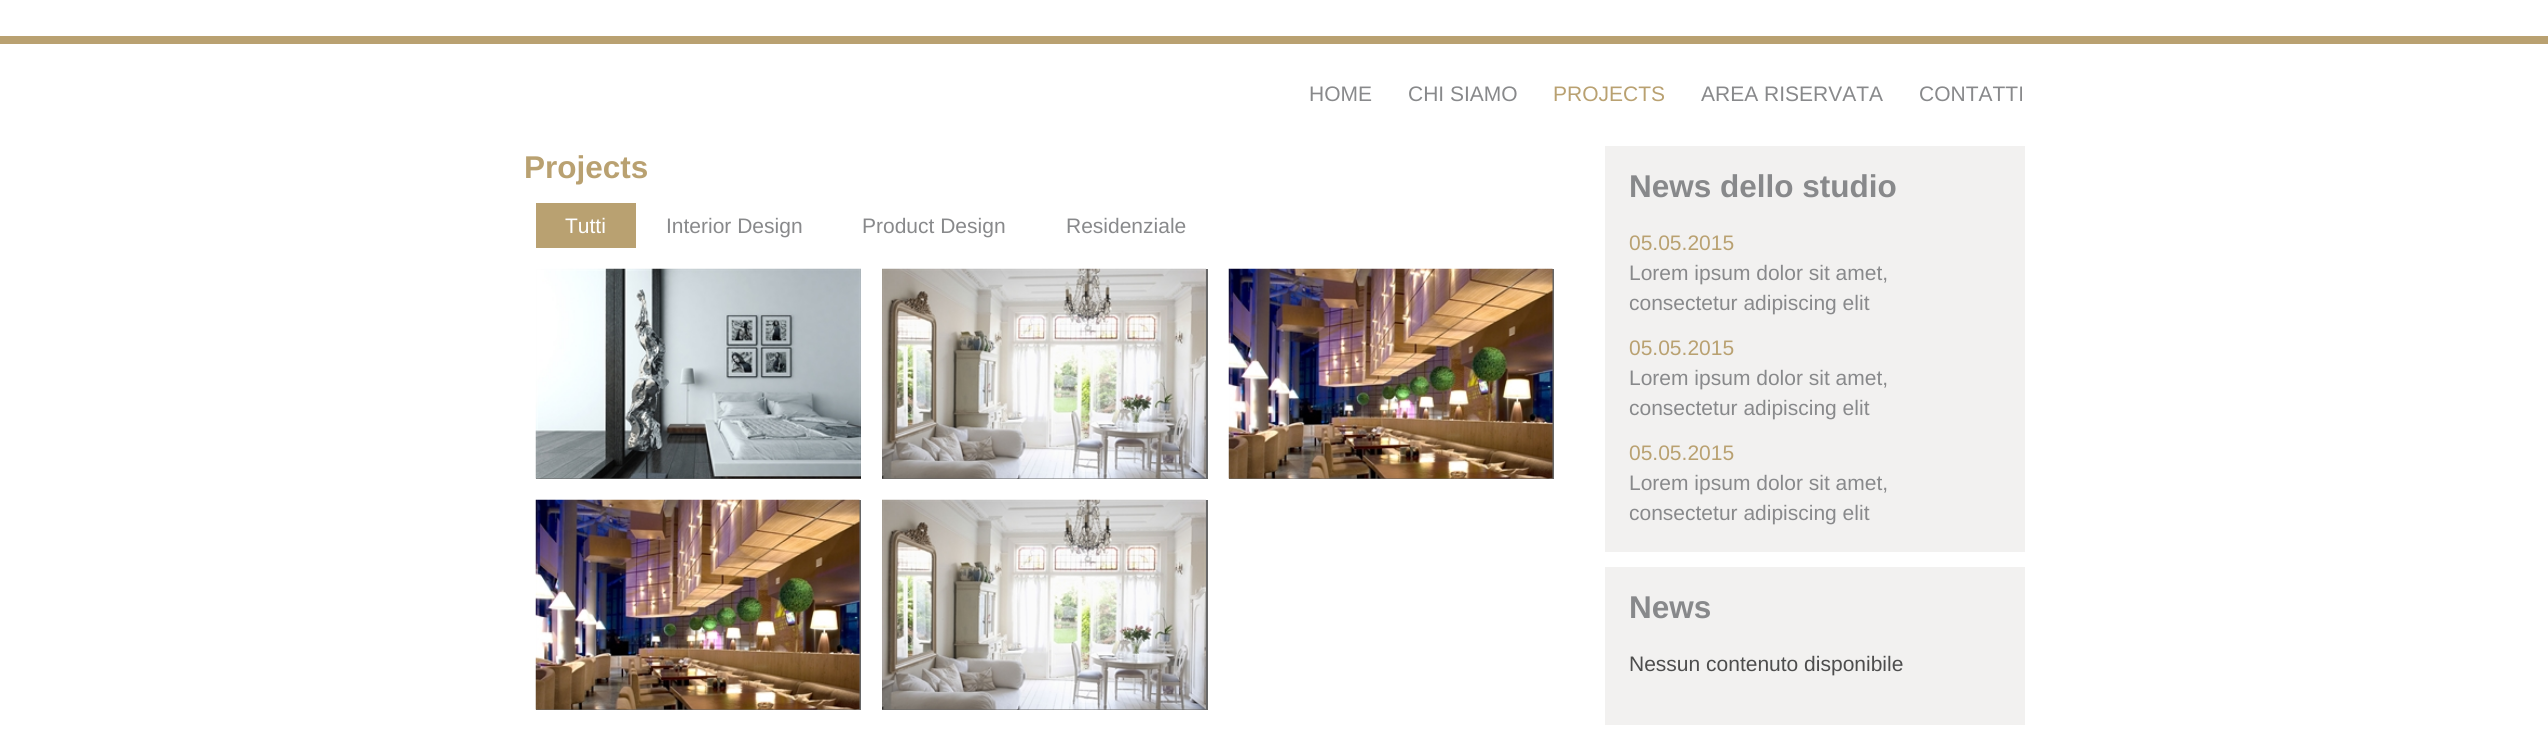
#include <cairo.h>
#include <math.h>
#include <stddef.h>


static void set_color(cairo_t *cr, unsigned color) {
    cairo_set_source_rgb(cr, (color >> 16) / 255.0, (color >> 8 & 255) / 255.0, (color & 255) / 255.0);
}

static void draw_text(cairo_t *cr, double x, double y, const char *s, const char *family, double size, int italic, int bold, unsigned color) {
    cairo_select_font_face(cr, family, italic ? CAIRO_FONT_SLANT_ITALIC : CAIRO_FONT_SLANT_NORMAL,
        bold ? CAIRO_FONT_WEIGHT_BOLD : CAIRO_FONT_WEIGHT_NORMAL);
    cairo_set_font_size(cr, size);
    set_color(cr, color);
    cairo_move_to(cr, x, y);
    cairo_show_text(cr, s);
}

static void fill_rect(cairo_t *cr, double x, double y, double w, double h, unsigned color) {
    set_color(cr, color);
    cairo_rectangle(cr, x, y, w, h);
    cairo_fill(cr);
}

static void draw_image(cairo_t *cr, const char *path, double x, double y, double w, double h) {
    cairo_surface_t *image = cairo_image_surface_create_from_png(path);
    cairo_save(cr);
    cairo_set_source_surface(cr, image, x, y);
    cairo_rectangle(cr, x, y, w, h);
    cairo_fill(cr);
    cairo_restore(cr);
    cairo_surface_destroy(image);
}

int main(void) {
    cairo_surface_t *surface = cairo_image_surface_create(CAIRO_FORMAT_RGB24, 2548, 744);
    cairo_t *cr = cairo_create(surface);
    cairo_font_options_t *options = cairo_font_options_create();
    cairo_font_options_set_hint_metrics(options, CAIRO_HINT_METRICS_OFF);
    cairo_font_options_set_hint_style(options, CAIRO_HINT_STYLE_NONE);
    cairo_set_font_options(cr, options);
    cairo_set_miter_limit(cr, 4);
    set_color(cr, 0xFFFFFF);
    cairo_paint(cr);
    fill_rect(cr, 0, 36, 2548, 8, 0xB9A171);
    draw_text(cr, 1309, 101, "HOME", "Liberation Sans", 21, 0, 0, 0x88898B);
    draw_text(cr, 1408, 101, "CHI SIAMO", "Liberation Sans", 21, 0, 0, 0x88898B);
    draw_text(cr, 1553, 101, "PROJECTS", "Liberation Sans", 21, 0, 0, 0xB9A171);
    draw_text(cr, 1701, 101, "AREA RISERVATA", "Liberation Sans", 21, 0, 0, 0x88898B);
    draw_text(cr, 1919, 101, "CONTATTI", "Liberation Sans", 21, 0, 0, 0x88898B);
    draw_text(cr, 524, 178, "Projects", "Liberation Sans", 31.5, 0, 1, 0xB9A171);
    fill_rect(cr, 536, 203, 100, 45, 0xB9A171);
    draw_text(cr, 565, 233, "Tutti", "Liberation Sans", 21, 0, 0, 0xFFFFFF);
    draw_text(cr, 666, 233, "Interior Design", "Liberation Sans", 21, 0, 0, 0x88898B);
    draw_text(cr, 862, 233, "Product Design", "Liberation Sans", 21, 0, 0, 0x88898B);
    draw_text(cr, 1066, 233, "Residenziale", "Liberation Sans", 21, 0, 0, 0x88898B);
    fill_rect(cr, 536, 478, 325, 1, 0x666666);
    draw_image(cr, "assets/img1.png", 535, 268, 326, 211);
    fill_rect(cr, 882, 269, 326, 210, 0x666666);
    draw_image(cr, "assets/img2.png", 882, 268, 324, 211);
    fill_rect(cr, 1229, 269, 325, 210, 0x666666);
    draw_image(cr, "assets/img3.png", 1228, 268, 325, 211);
    fill_rect(cr, 536, 500, 325, 210, 0x666666);
    draw_image(cr, "assets/img4.png", 535, 499, 325, 211);
    fill_rect(cr, 882, 500, 326, 210, 0x666666);
    draw_image(cr, "assets/img5.png", 882, 499, 324, 211);
    fill_rect(cr, 1605, 146, 420, 406, 0xF2F1F0);
    draw_text(cr, 1629, 197, "News dello studio", "Liberation Sans", 31.5, 0, 1, 0x88898B);
    draw_text(cr, 1629, 250, "05.05.2015", "Liberation Sans", 21, 0, 0, 0xB9A171);
    draw_text(cr, 1629, 280, "Lorem ipsum dolor sit amet,", "Liberation Sans", 21, 0, 0, 0x88898B);
    draw_text(cr, 1629, 310, "consectetur adipiscing elit", "Liberation Sans", 21, 0, 0, 0x88898B);
    draw_text(cr, 1629, 355, "05.05.2015", "Liberation Sans", 21, 0, 0, 0xB9A171);
    draw_text(cr, 1629, 385, "Lorem ipsum dolor sit amet,", "Liberation Sans", 21, 0, 0, 0x88898B);
    draw_text(cr, 1629, 415, "consectetur adipiscing elit", "Liberation Sans", 21, 0, 0, 0x88898B);
    draw_text(cr, 1629, 460, "05.05.2015", "Liberation Sans", 21, 0, 0, 0xB9A171);
    draw_text(cr, 1629, 490, "Lorem ipsum dolor sit amet,", "Liberation Sans", 21, 0, 0, 0x88898B);
    draw_text(cr, 1629, 520, "consectetur adipiscing elit", "Liberation Sans", 21, 0, 0, 0x88898B);
    fill_rect(cr, 1605, 567, 420, 158, 0xF2F1F0);
    draw_text(cr, 1629, 618, "News", "Liberation Sans", 31.5, 0, 1, 0x88898B);
    draw_text(cr, 1629, 671, "Nessun contenuto disponibile", "Liberation Sans", 21, 0, 0, 0x4D4D4D);
    cairo_surface_write_to_png(surface, "output.png");
    cairo_font_options_destroy(options);
    cairo_destroy(cr);
    cairo_surface_destroy(surface);
    return 0;
}
